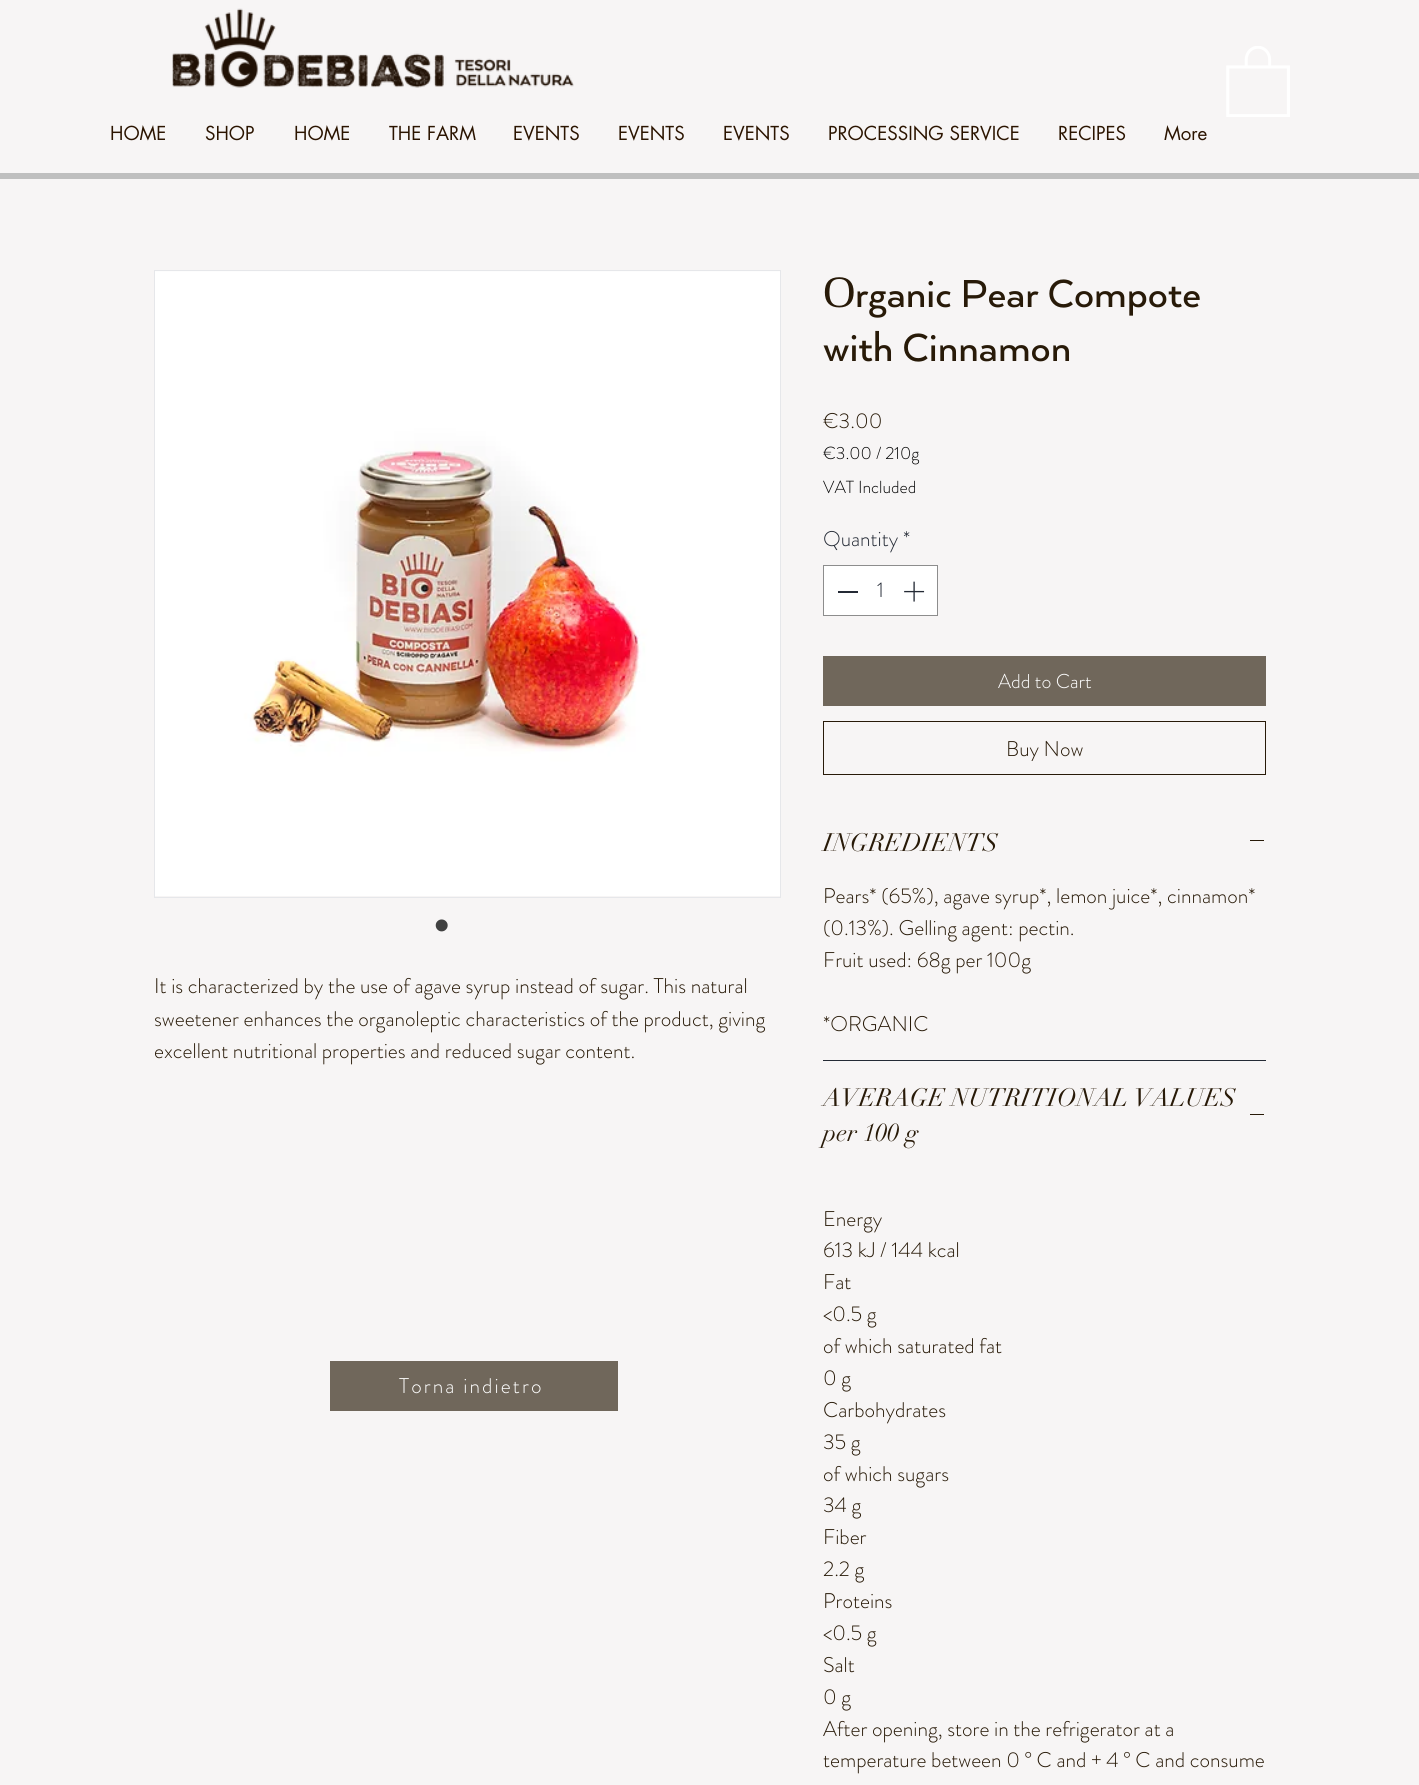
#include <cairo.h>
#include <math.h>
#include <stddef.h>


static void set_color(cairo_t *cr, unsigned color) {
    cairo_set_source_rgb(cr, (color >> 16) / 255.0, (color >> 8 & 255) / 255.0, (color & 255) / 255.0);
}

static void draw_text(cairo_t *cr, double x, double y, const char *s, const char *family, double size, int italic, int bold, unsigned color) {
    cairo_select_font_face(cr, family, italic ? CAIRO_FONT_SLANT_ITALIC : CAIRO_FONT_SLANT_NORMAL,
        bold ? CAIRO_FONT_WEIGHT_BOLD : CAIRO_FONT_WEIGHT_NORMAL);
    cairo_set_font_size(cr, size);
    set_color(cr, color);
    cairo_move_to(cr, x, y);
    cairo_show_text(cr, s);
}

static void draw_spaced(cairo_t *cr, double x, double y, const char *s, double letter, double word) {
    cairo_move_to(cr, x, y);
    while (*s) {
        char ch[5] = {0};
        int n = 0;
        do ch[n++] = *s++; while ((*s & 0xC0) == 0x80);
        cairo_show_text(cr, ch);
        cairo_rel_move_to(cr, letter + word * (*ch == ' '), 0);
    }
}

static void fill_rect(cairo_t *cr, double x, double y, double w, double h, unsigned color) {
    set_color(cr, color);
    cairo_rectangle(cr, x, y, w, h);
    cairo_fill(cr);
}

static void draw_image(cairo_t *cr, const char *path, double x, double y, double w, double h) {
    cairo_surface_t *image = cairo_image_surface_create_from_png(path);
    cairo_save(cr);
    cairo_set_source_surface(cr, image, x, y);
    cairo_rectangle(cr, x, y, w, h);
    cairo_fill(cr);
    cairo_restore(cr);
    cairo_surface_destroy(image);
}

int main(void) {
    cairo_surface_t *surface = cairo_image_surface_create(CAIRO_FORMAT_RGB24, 1419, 1785);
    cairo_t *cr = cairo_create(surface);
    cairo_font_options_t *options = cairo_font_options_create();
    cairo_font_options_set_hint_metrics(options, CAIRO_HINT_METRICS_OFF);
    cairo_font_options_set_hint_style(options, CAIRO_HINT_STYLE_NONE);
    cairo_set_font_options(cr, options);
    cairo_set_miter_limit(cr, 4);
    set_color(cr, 0xF7F5F5);
    cairo_paint(cr);
    draw_image(cr, "assets/img1.png", 172, 8, 402, 80);
    draw_image(cr, "assets/img2.png", 1226, 46, 64, 71);
    draw_text(cr, 110, 140, "HOME", "futura", 18.75, 0, 0, 0x2B1400);
    draw_text(cr, 205, 140, "SHOP", "futura", 18.75, 0, 0, 0x2B1400);
    draw_text(cr, 294, 140, "HOME", "futura", 18.75, 0, 0, 0x2B1400);
    draw_text(cr, 389, 140, "THE FARM", "futura", 18.75, 0, 0, 0x2B1400);
    draw_text(cr, 513, 140, "EVENTS", "futura", 18.75, 0, 0, 0x2B1400);
    draw_text(cr, 618, 140, "EVENTS", "futura", 18.75, 0, 0, 0x2B1400);
    draw_text(cr, 723, 140, "EVENTS", "futura", 18.75, 0, 0, 0x2B1400);
    draw_text(cr, 828, 140, "PROCESSING SERVICE", "futura", 18.75, 0, 0, 0x2B1400);
    draw_text(cr, 1058, 140, "RECIPES", "futura", 18.75, 0, 0, 0x2B1400);
    draw_text(cr, 1164, 140, "More", "futura", 18.75, 0, 0, 0x2B1400);
    fill_rect(cr, 0, 173, 1419, 6, 0xBFBFBF);
    cairo_rectangle(cr, 154.5, 270.5, 626, 627);
    set_color(cr, 0xE6E7EA);
    cairo_set_line_width(cr, 1);
    cairo_stroke(cr);
    draw_image(cr, "assets/img3.png", 155, 271, 625, 625);
    draw_text(cr, 434, 940, "•", "Liberation Sans", 44, 0, 0, 0x414141);
    draw_text(cr, 154, 993, "It is characterized by the use of agave syrup instead of sugar. This natural", "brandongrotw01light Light", 21.25, 0, 0, 0x281A08);
    draw_text(cr, 154, 1026, "sweetener enhances the organoleptic characteristics of the product, giving", "brandongrotw01light Light", 21.25, 0, 0, 0x281A08);
    draw_text(cr, 154, 1058, "excellent nutritional properties and reduced sugar content.", "brandongrotw01light Light", 21.25, 0, 0, 0x281A08);
    draw_text(cr, 823, 307, "O", "Liberation Serif", 45, 0, 0, 0x281A08);
    draw_text(cr, 855, 307, "rganic Pear Compote", "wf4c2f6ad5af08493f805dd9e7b", 45, 0, 0, 0x281A08);
    draw_text(cr, 823, 361, "with Cinnamon", "wf4c2f6ad5af08493f805dd9e7b", 45, 0, 0, 0x281A08);
    draw_text(cr, 823, 428, "€3.00", "brandongrotw01light Light", 21.25, 0, 0, 0x281A08);
    draw_text(cr, 823, 459, "€3.00 / 210g", "brandongrotw01light Light", 17.5, 0, 0, 0x000000);
    draw_text(cr, 823, 493, "VAT Included", "brandongrotw01light Light", 17.5, 0, 0, 0x000000);
    draw_text(cr, 823, 546, "Quantity", "brandongrotw01light Light", 21.25, 0, 0, 0x242A35);
    draw_text(cr, 903, 546, "*", "brandongrotw01light Light", 21.25, 0, 0, 0x242A35);
    set_color(cr, 0xFFFFFF);
    cairo_rectangle(cr, 823.5, 565.5, 114, 50);
    cairo_fill_preserve(cr);
    set_color(cr, 0x8D8D8D);
    cairo_stroke(cr);
    fill_rect(cr, 838, 591, 20, 2, 0x242A35);
    draw_text(cr, 877, 597, "1", "brandongrotw01light Light", 21.25, 0, 0, 0x242A35);
    draw_image(cr, "assets/img4.png", 904, 581, 21, 21);
    fill_rect(cr, 823, 656, 443, 50, 0x70675B);
    draw_text(cr, 998, 688, "Add to Cart", "brandongrotw01light Light", 20, 0, 0, 0xFFFFFF);
    cairo_rectangle(cr, 823.5, 721.5, 442, 53);
    set_color(cr, 0x281A08);
    cairo_stroke(cr);
    cairo_save(cr);
    cairo_rectangle(cr, 1006, 735, 77, 26);
    cairo_clip(cr);
    draw_text(cr, 1006, 756, "Buy Now", "brandongrotw01light Light", 21.25, 0, 0, 0x281A08);
    cairo_restore(cr);
    fill_rect(cr, 823, 1060, 443, 1, 0x242A35);
    draw_text(cr, 823, 851, "INGREDIENTS", "didot", 25, 0, 0, 0x281A08);
    fill_rect(cr, 1250, 840, 14, 1, 0x281A08);
    draw_text(cr, 823, 903, "Pears* (65%), agave syrup*, lemon juice*, cinnamon*", "brandongrotw01light Light", 21.25, 0, 0, 0x281A08);
    draw_text(cr, 823, 935, "(0.13%). Gelling agent: pectin.", "brandongrotw01light Light", 21.25, 0, 0, 0x281A08);
    draw_text(cr, 823, 967, "Fruit used: 68g per 100g", "brandongrotw01light Light", 21.25, 0, 0, 0x281A08);
    draw_text(cr, 823, 1031, "*ORGANIC", "brandongrotw01light Light", 21.25, 0, 0, 0x281A08);
    draw_text(cr, 823, 1106, "AVERAGE NUTRITIONAL VALUES", "didot", 25, 0, 0, 0x281A08);
    draw_text(cr, 823, 1141, "per 100 g", "didot", 25, 0, 0, 0x281A08);
    fill_rect(cr, 1250, 1114, 14, 1, 0x281A08);
    draw_text(cr, 823, 1226, "Energy", "brandongrotw01light Light", 21.25, 0, 0, 0x281A08);
    draw_text(cr, 823, 1257, "613 kJ / 144 kcal", "brandongrotw01light Light", 21.25, 0, 0, 0x281A08);
    draw_text(cr, 823, 1289, "Fat", "brandongrotw01light Light", 21.25, 0, 0, 0x281A08);
    draw_text(cr, 823, 1321, "<0.5 g", "brandongrotw01light Light", 21.25, 0, 0, 0x281A08);
    draw_text(cr, 823, 1353, "of which saturated fat", "brandongrotw01light Light", 21.25, 0, 0, 0x281A08);
    draw_text(cr, 823, 1385, "0 g", "brandongrotw01light Light", 21.25, 0, 0, 0x281A08);
    draw_text(cr, 823, 1417, "Carbohydrates", "brandongrotw01light Light", 21.25, 0, 0, 0x281A08);
    draw_text(cr, 823, 1449, "35 g", "brandongrotw01light Light", 21.25, 0, 0, 0x281A08);
    draw_text(cr, 823, 1481, "of which sugars", "brandongrotw01light Light", 21.25, 0, 0, 0x281A08);
    draw_text(cr, 823, 1512, "34 g", "brandongrotw01light Light", 21.25, 0, 0, 0x281A08);
    draw_text(cr, 823, 1544, "Fiber", "brandongrotw01light Light", 21.25, 0, 0, 0x281A08);
    draw_text(cr, 823, 1576, "2.2 g", "brandongrotw01light Light", 21.25, 0, 0, 0x281A08);
    draw_text(cr, 823, 1608, "Proteins", "brandongrotw01light Light", 21.25, 0, 0, 0x281A08);
    draw_text(cr, 823, 1640, "<0.5 g", "brandongrotw01light Light", 21.25, 0, 0, 0x281A08);
    draw_text(cr, 823, 1672, "Salt", "brandongrotw01light Light", 21.25, 0, 0, 0x281A08);
    draw_text(cr, 823, 1704, "0 g", "brandongrotw01light Light", 21.25, 0, 0, 0x281A08);
    draw_text(cr, 823, 1736, "After opening, store in the refrigerator at a", "brandongrotw01light Light", 21.25, 0, 0, 0x281A08);
    draw_text(cr, 823, 1767, "temperature between 0 ° C and + 4 ° C and consume", "brandongrotw01light Light", 21.25, 0, 0, 0x281A08);
    fill_rect(cr, 330, 1361, 288, 50, 0x70675B);
    set_color(cr, 0xFFFFFF);
    draw_spaced(cr, 399, 1393, "Torna indietro", 2.1, 0);
    cairo_surface_write_to_png(surface, "output.png");
    cairo_font_options_destroy(options);
    cairo_destroy(cr);
    cairo_surface_destroy(surface);
    return 0;
}
